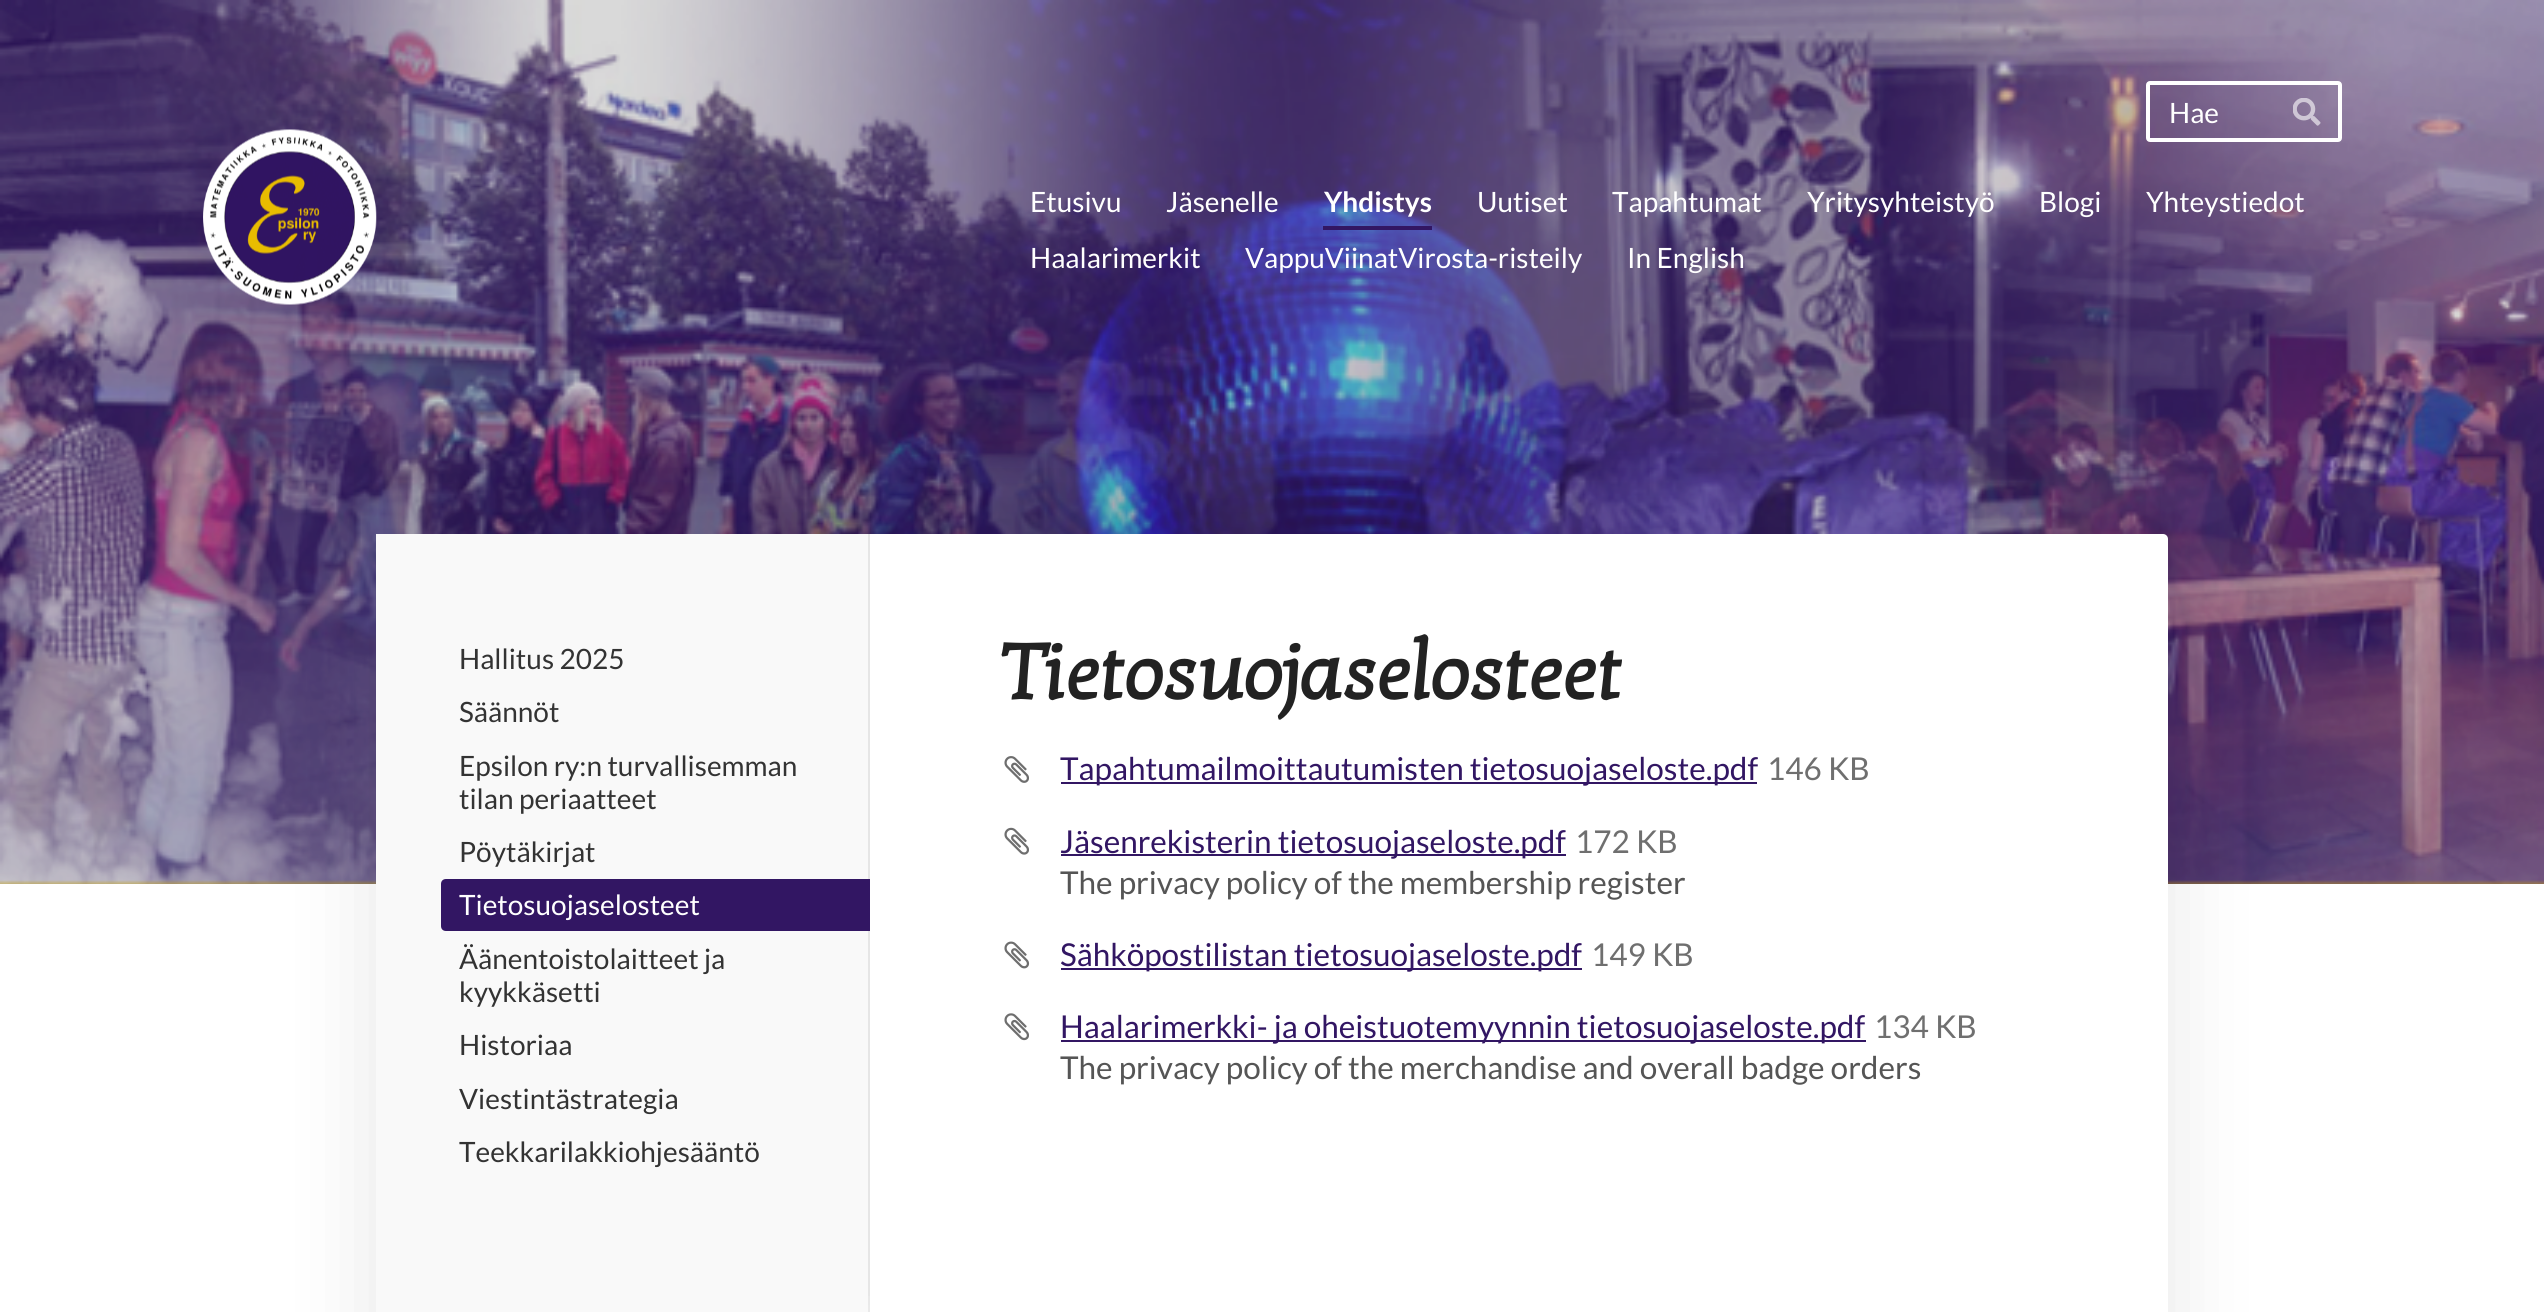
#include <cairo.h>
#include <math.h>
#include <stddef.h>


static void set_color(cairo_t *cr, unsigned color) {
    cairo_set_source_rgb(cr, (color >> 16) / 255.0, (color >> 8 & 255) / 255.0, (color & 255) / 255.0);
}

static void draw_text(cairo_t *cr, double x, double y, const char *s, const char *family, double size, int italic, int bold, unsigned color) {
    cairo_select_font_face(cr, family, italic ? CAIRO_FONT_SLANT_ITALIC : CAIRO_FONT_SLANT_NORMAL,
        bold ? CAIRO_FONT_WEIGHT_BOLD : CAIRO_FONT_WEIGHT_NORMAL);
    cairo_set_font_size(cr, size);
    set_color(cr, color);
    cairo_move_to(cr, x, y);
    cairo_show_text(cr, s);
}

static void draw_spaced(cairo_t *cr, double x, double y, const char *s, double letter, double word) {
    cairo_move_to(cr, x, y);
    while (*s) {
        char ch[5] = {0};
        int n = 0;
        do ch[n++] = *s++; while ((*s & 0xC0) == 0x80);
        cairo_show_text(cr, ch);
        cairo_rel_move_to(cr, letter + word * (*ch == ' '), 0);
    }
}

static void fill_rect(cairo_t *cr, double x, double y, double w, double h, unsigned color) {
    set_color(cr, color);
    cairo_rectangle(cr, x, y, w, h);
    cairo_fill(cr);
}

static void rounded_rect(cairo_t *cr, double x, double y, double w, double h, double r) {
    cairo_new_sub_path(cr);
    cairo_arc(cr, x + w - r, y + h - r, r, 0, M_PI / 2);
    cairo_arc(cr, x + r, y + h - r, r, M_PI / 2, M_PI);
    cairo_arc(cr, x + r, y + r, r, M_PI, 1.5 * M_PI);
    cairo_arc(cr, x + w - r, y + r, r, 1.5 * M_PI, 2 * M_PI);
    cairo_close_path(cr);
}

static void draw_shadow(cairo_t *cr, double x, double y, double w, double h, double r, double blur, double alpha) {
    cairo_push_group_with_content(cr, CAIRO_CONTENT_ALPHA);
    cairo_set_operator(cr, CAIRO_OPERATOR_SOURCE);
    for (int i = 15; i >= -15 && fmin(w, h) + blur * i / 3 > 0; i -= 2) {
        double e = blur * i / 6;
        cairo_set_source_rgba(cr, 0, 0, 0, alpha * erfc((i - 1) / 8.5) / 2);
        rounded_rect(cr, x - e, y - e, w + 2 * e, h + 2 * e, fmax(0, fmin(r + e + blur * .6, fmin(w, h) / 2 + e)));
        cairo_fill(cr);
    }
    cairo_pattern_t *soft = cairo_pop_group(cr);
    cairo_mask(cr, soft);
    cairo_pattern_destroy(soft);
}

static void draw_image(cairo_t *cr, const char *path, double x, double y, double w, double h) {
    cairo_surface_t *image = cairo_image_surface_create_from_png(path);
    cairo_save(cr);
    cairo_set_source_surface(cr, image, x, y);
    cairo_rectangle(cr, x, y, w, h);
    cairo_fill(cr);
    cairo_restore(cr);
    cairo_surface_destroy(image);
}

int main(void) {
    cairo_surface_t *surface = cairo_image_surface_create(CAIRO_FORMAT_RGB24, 2544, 1312);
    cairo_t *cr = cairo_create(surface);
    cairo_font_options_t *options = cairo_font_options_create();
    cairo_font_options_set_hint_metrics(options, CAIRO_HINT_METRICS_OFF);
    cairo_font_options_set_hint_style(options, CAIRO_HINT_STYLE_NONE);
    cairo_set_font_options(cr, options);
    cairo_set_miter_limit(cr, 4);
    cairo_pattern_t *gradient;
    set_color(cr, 0xFFFFFF);
    cairo_paint(cr);
    fill_rect(cr, 0, 880, 2544, 4, 0xC7A102);
    draw_image(cr, "assets/img1.png", 0, 0, 2544, 884);
    rounded_rect(cr, 2148, 83, 192, 57, 2);
    set_color(cr, 0xFFFFFF);
    cairo_set_line_width(cr, 4);
    cairo_stroke(cr);
    draw_text(cr, 2169, 123, "Hae", "Lato", 28, 0, 0, 0xFFFFFF);
    draw_image(cr, "assets/img2.png", 2293, 98, 28, 28);
    draw_image(cr, "assets/img3.png", 203, 129, 174, 176);
    draw_text(cr, 1030, 212, "Etusivu", "Lato", 28, 0, 0, 0xFFFFFF);
    draw_text(cr, 1166, 212, "Jäsenelle", "Lato", 28, 0, 0, 0xFFFFFF);
    draw_text(cr, 1324, 212, "Yhdistys", "Lato", 28, 0, 1, 0xFFFFFF);
    fill_rect(cr, 1323, 226, 109, 4, 0x321663);
    draw_text(cr, 1477, 212, "Uutiset", "Lato", 28, 0, 0, 0xFFFFFF);
    draw_text(cr, 1612, 212, "Tapahtumat", "Lato", 28, 0, 0, 0xFFFFFF);
    draw_text(cr, 1807, 212, "Yritysyhteistyö", "Lato", 28, 0, 0, 0xFFFFFF);
    draw_text(cr, 2039, 212, "Blogi", "Lato", 28, 0, 0, 0xFFFFFF);
    draw_text(cr, 2146, 212, "Yhteystiedot", "Lato", 28, 0, 0, 0xFFFFFF);
    draw_text(cr, 1030, 268, "Haalarimerkit", "Lato", 28, 0, 0, 0xFFFFFF);
    draw_text(cr, 1245, 268, "VappuViinatVirosta-risteily", "Lato", 28, 0, 0, 0xFFFFFF);
    draw_text(cr, 1627, 268, "In English", "Lato", 28, 0, 0, 0xFFFFFF);
    set_color(cr, 0x000000);
    draw_shadow(cr, 376, 446, 1792, 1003, 5, 44, 0.1);
    set_color(cr, 0xFFFFFF);
    rounded_rect(cr, 376, 534, 1792, 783, 5);
    cairo_fill(cr);
    fill_rect(cr, 376, 534, 492, 778, 0xF9F9F9);
    fill_rect(cr, 868, 534, 2, 778, 0xE6E6E6);
    draw_text(cr, 459, 669, "Hallitus 2025", "Lato", 28, 0, 0, 0x333333);
    draw_text(cr, 459, 722, "Säännöt", "Lato", 28, 0, 0, 0x333333);
    draw_text(cr, 459, 776, "Epsilon ry:n turvallisemman", "Lato", 28, 0, 0, 0x333333);
    draw_text(cr, 459, 809, "tilan periaatteet", "Lato", 28, 0, 0, 0x333333);
    draw_text(cr, 459, 862, "Pöytäkirjat", "Lato", 28, 0, 0, 0x333333);
    set_color(cr, 0x321663);
    cairo_new_path(cr);
    cairo_move_to(cr, 446, 879);
    cairo_line_to(cr, 870, 879);
    cairo_line_to(cr, 870, 931);
    cairo_line_to(cr, 446, 931);
    cairo_curve_to(cr, 443, 931, 441, 929, 441, 926);
    cairo_line_to(cr, 441, 884);
    cairo_curve_to(cr, 441, 881, 443, 879, 446, 879);
    cairo_close_path(cr);
    cairo_fill(cr);
    draw_text(cr, 459, 915, "Tietosuojaselosteet", "Lato", 28, 0, 0, 0xFFFFFF);
    draw_text(cr, 459, 969, "Äänentoistolaitteet ja", "Lato", 28, 0, 0, 0x333333);
    draw_text(cr, 459, 1002, "kyykkäsetti", "Lato", 28, 0, 0, 0x333333);
    draw_text(cr, 459, 1055, "Historiaa", "Lato", 28, 0, 0, 0x333333);
    draw_text(cr, 459, 1109, "Viestintästrategia", "Lato", 28, 0, 0, 0x333333);
    draw_text(cr, 459, 1162, "Teekkarilakkiohjesääntö", "Lato", 28, 0, 0, 0x333333);
    gradient = cairo_pattern_create_linear(623, 1269, 623, 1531);
    cairo_pattern_add_color_stop_rgba(gradient, 0, 1, 1, 1, 0);
    cairo_pattern_add_color_stop_rgba(gradient, 1, 1, 1, 1, 1);
    cairo_set_source(cr, gradient);
    cairo_pattern_destroy(gradient);
    cairo_rectangle(cr, 868, 1296, 2, 16);
    cairo_fill(cr);
    cairo_select_font_face(cr, "Kotta One", CAIRO_FONT_SLANT_NORMAL, CAIRO_FONT_WEIGHT_BOLD);
    cairo_set_font_size(cr, 79.25);
    set_color(cr, 0x222222);
    draw_spaced(cr, 1000, 699, "Tietosuojaselosteet", -1.2, 0);
    draw_image(cr, "assets/img4.png", 1004, 756, 25, 27);
    fill_rect(cr, 1061, 782, 696, 2, 0x321663);
    draw_text(cr, 1060, 780, "Tapahtumailmoittautumisten tietosuojaseloste.pdf", "Lato", 31.5, 0, 0, 0x321663);
    draw_text(cr, 1767, 780, "146 KB", "Lato", 31.5, 0, 0, 0x6F6F6F);
    draw_image(cr, "assets/img5.png", 1004, 827, 25, 28);
    fill_rect(cr, 1061, 854, 505, 2, 0x321663);
    draw_text(cr, 1060, 853, "Jäsenrekisterin tietosuojaseloste.pdf", "Lato", 31.5, 0, 0, 0x321663);
    draw_text(cr, 1575, 853, "172 KB", "Lato", 31.5, 0, 0, 0x6F6F6F);
    draw_text(cr, 1060, 894, "The privacy policy of the membership register", "Lato", 31.5, 0, 0, 0x555555);
    draw_image(cr, "assets/img6.png", 1004, 941, 26, 28);
    fill_rect(cr, 1061, 968, 521, 2, 0x321663);
    draw_text(cr, 1060, 966, "Sähköpostilistan tietosuojaseloste.pdf", "Lato", 31.5, 0, 0, 0x321663);
    draw_text(cr, 1591, 966, "149 KB", "Lato", 31.5, 0, 0, 0x6F6F6F);
    draw_image(cr, "assets/img7.png", 1004, 1013, 25, 28);
    fill_rect(cr, 1061, 1040, 805, 2, 0x321663);
    draw_text(cr, 1060, 1038, "Haalarimerkki- ja oheistuotemyynnin tietosuojaseloste.pdf", "Lato", 31.5, 0, 0, 0x321663);
    draw_text(cr, 1874, 1038, "134 KB", "Lato", 31.5, 0, 0, 0x6F6F6F);
    draw_text(cr, 1060, 1079, "The privacy policy of the merchandise and overall badge orders", "Lato", 31.5, 0, 0, 0x555555);
    cairo_surface_write_to_png(surface, "output.png");
    cairo_font_options_destroy(options);
    cairo_destroy(cr);
    cairo_surface_destroy(surface);
    return 0;
}
